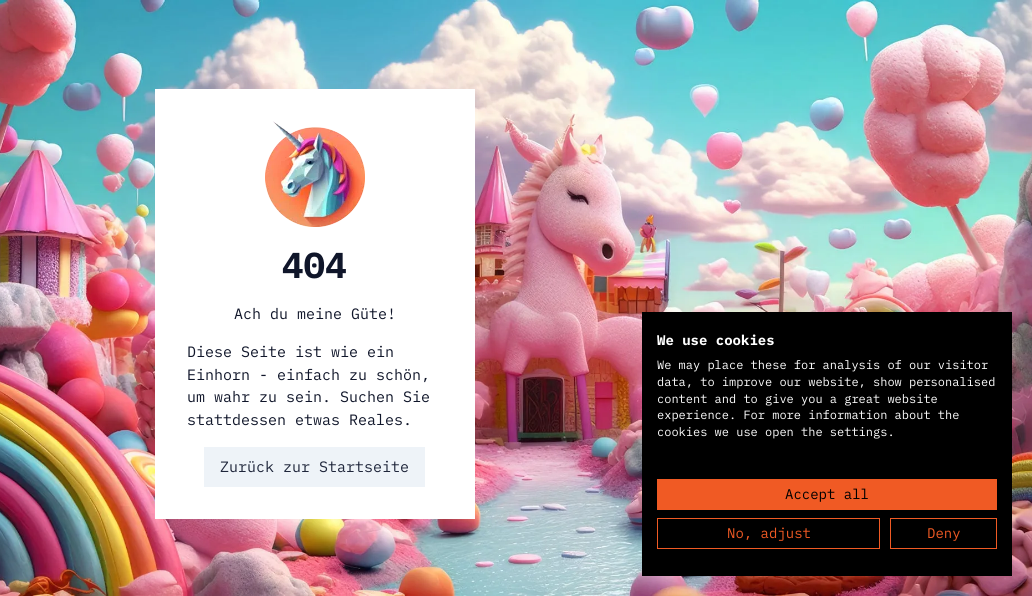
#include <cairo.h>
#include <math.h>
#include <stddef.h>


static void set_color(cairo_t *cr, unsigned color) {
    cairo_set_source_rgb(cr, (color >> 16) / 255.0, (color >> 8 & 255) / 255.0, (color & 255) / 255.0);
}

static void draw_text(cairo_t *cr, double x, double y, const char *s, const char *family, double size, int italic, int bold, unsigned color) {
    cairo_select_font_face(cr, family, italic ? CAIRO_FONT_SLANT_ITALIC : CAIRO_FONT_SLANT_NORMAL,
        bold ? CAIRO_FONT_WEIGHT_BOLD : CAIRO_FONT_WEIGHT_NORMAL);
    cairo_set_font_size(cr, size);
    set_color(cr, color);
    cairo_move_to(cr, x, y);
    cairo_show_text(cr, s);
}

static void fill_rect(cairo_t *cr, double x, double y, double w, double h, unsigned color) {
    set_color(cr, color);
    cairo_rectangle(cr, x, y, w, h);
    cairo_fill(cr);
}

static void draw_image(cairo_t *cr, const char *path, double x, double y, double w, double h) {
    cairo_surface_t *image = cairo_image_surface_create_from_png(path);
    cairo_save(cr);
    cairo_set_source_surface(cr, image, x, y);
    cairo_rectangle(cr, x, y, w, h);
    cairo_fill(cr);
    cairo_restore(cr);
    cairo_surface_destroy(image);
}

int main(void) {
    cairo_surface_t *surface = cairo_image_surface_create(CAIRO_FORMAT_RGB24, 1032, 596);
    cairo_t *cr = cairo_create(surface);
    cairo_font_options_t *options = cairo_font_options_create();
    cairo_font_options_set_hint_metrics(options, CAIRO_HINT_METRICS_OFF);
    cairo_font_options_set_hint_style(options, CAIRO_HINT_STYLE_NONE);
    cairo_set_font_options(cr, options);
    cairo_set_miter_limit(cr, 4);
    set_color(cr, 0xFFFFFF);
    cairo_paint(cr);
    draw_image(cr, "assets/img1.png", 0, 0, 1032, 596);
    fill_rect(cr, 155, 89, 320, 430, 0xFFFFFF);
    draw_image(cr, "assets/img2.png", 265, 121, 100, 106);
    draw_text(cr, 282, 278, "404", "IBM Plex Mono", 36, 0, 1, 0x10162A);
    draw_text(cr, 234, 319, "Ach du meine Güte!", "IBM Plex Mono", 15, 0, 0, 0x10162A);
    draw_text(cr, 187, 357, "Diese Seite ist wie ein", "IBM Plex Mono", 15, 0, 0, 0x10162A);
    draw_text(cr, 187, 380, "Einhorn - einfach zu schön,", "IBM Plex Mono", 15, 0, 0, 0x10162A);
    draw_text(cr, 187, 402, "um wahr zu sein. Suchen Sie", "IBM Plex Mono", 15, 0, 0, 0x10162A);
    draw_text(cr, 187, 425, "stattdessen etwas Reales.", "IBM Plex Mono", 15, 0, 0, 0x10162A);
    fill_rect(cr, 204, 447, 221, 40, 0xEEF3F8);
    draw_text(cr, 220, 472, "Zurück zur Startseite", "IBM Plex Mono", 15, 0, 0, 0x1F263B);
    fill_rect(cr, 642, 312, 370, 264, 0x000000);
    draw_text(cr, 657, 345, "We use cookies", "IBM Plex Mono", 14, 0, 1, 0xFFFFFF);
    draw_text(cr, 657, 369, "We may place these for analysis of our visitor", "IBM Plex Mono", 12, 0, 0, 0xFFFFFF);
    draw_text(cr, 657, 386, "data, to improve our website, show personalised", "IBM Plex Mono", 12, 0, 0, 0xFFFFFF);
    draw_text(cr, 657, 403, "content and to give you a great website", "IBM Plex Mono", 12, 0, 0, 0xFFFFFF);
    draw_text(cr, 657, 419, "experience. For more information about the", "IBM Plex Mono", 12, 0, 0, 0xFFFFFF);
    draw_text(cr, 657, 436, "cookies we use open the settings.", "IBM Plex Mono", 12, 0, 0, 0xFFFFFF);
    fill_rect(cr, 657, 479, 340, 31, 0xF05A24);
    draw_text(cr, 785, 499, "Accept all", "IBM Plex Mono", 14, 0, 0, 0x000000);
    cairo_rectangle(cr, 657.5, 518.5, 222, 30);
    set_color(cr, 0xF05A24);
    cairo_set_line_width(cr, 1);
    cairo_stroke(cr);
    draw_text(cr, 727, 538, "No, adjust", "IBM Plex Mono", 14, 0, 0, 0xF05A24);
    cairo_rectangle(cr, 890.5, 518.5, 106, 30);
    cairo_stroke(cr);
    draw_text(cr, 927, 538, "Deny", "IBM Plex Mono", 14, 0, 0, 0xF05A24);
    cairo_surface_write_to_png(surface, "output.png");
    cairo_font_options_destroy(options);
    cairo_destroy(cr);
    cairo_surface_destroy(surface);
    return 0;
}
